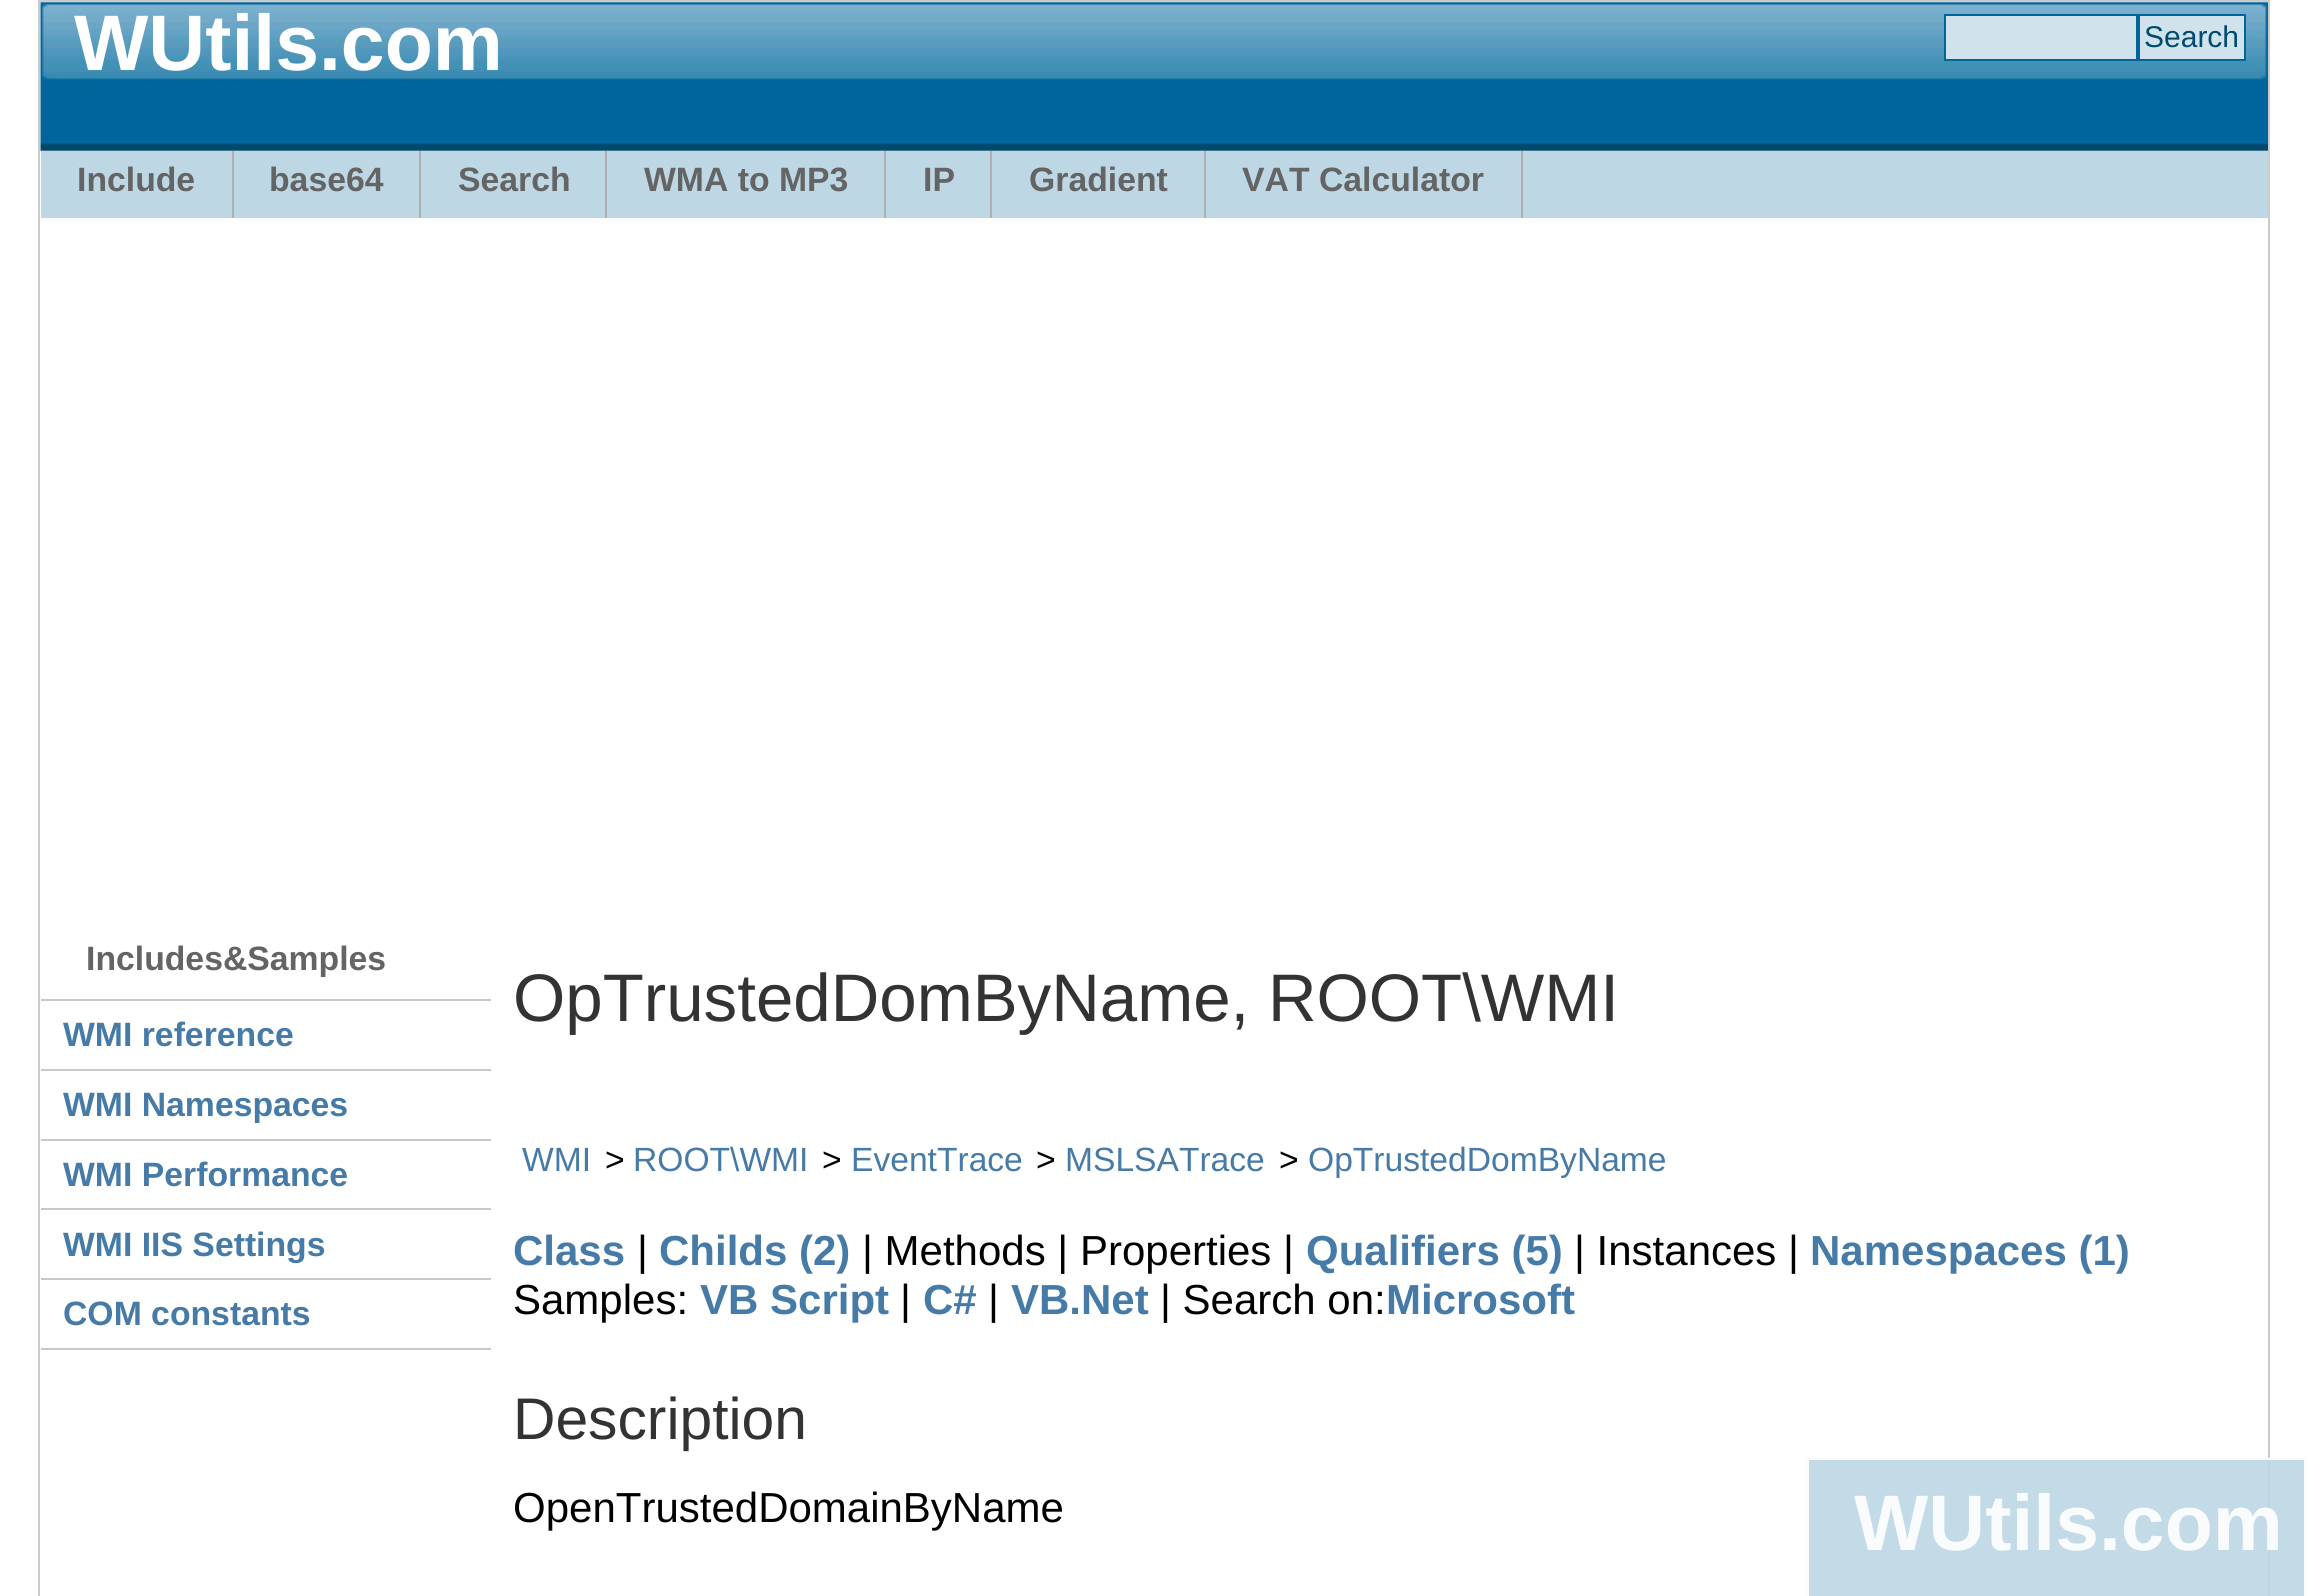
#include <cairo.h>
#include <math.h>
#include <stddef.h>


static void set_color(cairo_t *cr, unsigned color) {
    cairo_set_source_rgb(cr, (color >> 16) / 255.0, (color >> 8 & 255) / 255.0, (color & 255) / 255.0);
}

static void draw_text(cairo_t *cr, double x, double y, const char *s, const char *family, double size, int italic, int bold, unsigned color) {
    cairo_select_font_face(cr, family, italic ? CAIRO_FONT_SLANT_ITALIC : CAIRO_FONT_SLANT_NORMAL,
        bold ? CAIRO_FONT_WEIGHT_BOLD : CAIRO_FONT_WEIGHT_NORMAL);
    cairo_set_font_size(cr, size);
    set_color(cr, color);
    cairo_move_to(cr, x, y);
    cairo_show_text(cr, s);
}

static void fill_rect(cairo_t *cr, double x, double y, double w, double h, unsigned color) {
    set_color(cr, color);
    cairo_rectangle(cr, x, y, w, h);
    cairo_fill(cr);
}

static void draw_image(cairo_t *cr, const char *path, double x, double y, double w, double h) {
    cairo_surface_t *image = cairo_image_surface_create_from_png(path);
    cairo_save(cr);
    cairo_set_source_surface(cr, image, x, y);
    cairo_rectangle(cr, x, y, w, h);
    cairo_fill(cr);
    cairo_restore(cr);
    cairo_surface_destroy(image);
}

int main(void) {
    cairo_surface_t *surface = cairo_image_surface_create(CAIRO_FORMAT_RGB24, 2308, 1596);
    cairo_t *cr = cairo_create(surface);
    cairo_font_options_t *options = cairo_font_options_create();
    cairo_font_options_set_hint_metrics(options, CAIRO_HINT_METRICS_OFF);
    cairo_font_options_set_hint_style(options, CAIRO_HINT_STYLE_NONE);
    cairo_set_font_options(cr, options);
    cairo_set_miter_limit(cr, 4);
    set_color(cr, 0xFFFFFF);
    cairo_paint(cr);
    cairo_rectangle(cr, 39, 1, 2230, 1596);
    set_color(cr, 0xCCCCCC);
    cairo_stroke(cr);
    draw_image(cr, "assets/img1.png", 40, 2, 2228, 149);
    draw_text(cr, 74, 70, "WUtils.com", "Liberation Sans", 78.75, 0, 1, 0xFFFFFF);
    set_color(cr, 0xD0E2EC);
    cairo_rectangle(cr, 1945, 15, 192, 45);
    cairo_fill_preserve(cr);
    set_color(cr, 0x006699);
    cairo_stroke(cr);
    set_color(cr, 0xD0E2EC);
    cairo_rectangle(cr, 2139, 15, 106, 45);
    cairo_fill_preserve(cr);
    set_color(cr, 0x006699);
    cairo_stroke(cr);
    draw_text(cr, 2144, 47, "Search", "Liberation Sans", 30, 0, 0, 0x004A6F);
    fill_rect(cr, 41, 151, 2227, 67, 0xBDD7E5);
    fill_rect(cr, 232, 151, 2, 67, 0xAFAFAF);
    draw_text(cr, 77, 191, "Include", "Liberation Sans", 33.75, 0, 1, 0x646464);
    fill_rect(cr, 419, 151, 2, 67, 0xAFAFAF);
    draw_text(cr, 269, 191, "base64", "Liberation Sans", 33.75, 0, 1, 0x646464);
    fill_rect(cr, 605, 151, 2, 67, 0xAFAFAF);
    draw_text(cr, 458, 191, "Search", "Liberation Sans", 33.75, 0, 1, 0x646464);
    fill_rect(cr, 884, 151, 2, 67, 0xAFAFAF);
    draw_text(cr, 644, 191, "WMA to MP3", "Liberation Sans", 33.75, 0, 1, 0x646464);
    fill_rect(cr, 990, 151, 2, 67, 0xAFAFAF);
    draw_text(cr, 923, 191, "IP", "Liberation Sans", 33.75, 0, 1, 0x646464);
    fill_rect(cr, 1204, 151, 2, 67, 0xAFAFAF);
    draw_text(cr, 1029, 191, "Gradient", "Liberation Sans", 33.75, 0, 1, 0x646464);
    fill_rect(cr, 1521, 151, 2, 67, 0xAFAFAF);
    draw_text(cr, 1242, 191, "VAT Calculator", "Liberation Sans", 33.75, 0, 1, 0x646464);
    draw_text(cr, 86, 970, "Includes&Samples", "Liberation Sans", 33.75, 0, 1, 0x646464);
    fill_rect(cr, 41, 1348, 450, 2, 0xC8C8C8);
    fill_rect(cr, 41, 999, 450, 2, 0xC8C8C8);
    draw_text(cr, 63, 1046, "WMI reference", "Liberation Sans", 33.75, 0, 1, 0x467AA7);
    fill_rect(cr, 41, 1069, 450, 2, 0xC8C8C8);
    draw_text(cr, 63, 1116, "WMI Namespaces", "Liberation Sans", 33.75, 0, 1, 0x467AA7);
    fill_rect(cr, 41, 1139, 450, 2, 0xC8C8C8);
    draw_text(cr, 63, 1186, "WMI Performance", "Liberation Sans", 33.75, 0, 1, 0x467AA7);
    fill_rect(cr, 41, 1208, 450, 2, 0xC8C8C8);
    draw_text(cr, 63, 1256, "WMI IIS Settings", "Liberation Sans", 33.75, 0, 1, 0x467AA7);
    fill_rect(cr, 41, 1278, 450, 2, 0xC8C8C8);
    draw_text(cr, 63, 1325, "COM constants", "Liberation Sans", 33.75, 0, 1, 0x467AA7);
    draw_text(cr, 513, 1021, "OpTrustedDomByName, ROOT\\WMI", "Liberation Sans", 67.25, 0, 0, 0x333333);
    draw_text(cr, 522, 1171, "WMI", "Liberation Sans", 33.6, 0, 0, 0x467AA7);
    draw_text(cr, 605, 1171, ">", "Liberation Sans", 33.6, 0, 0, 0x000000);
    draw_text(cr, 633, 1171, "ROOT\\WMI", "Liberation Sans", 33.6, 0, 0, 0x467AA7);
    draw_text(cr, 822, 1171, ">", "Liberation Sans", 33.6, 0, 0, 0x000000);
    draw_text(cr, 851, 1171, "EventTrace", "Liberation Sans", 33.6, 0, 0, 0x467AA7);
    draw_text(cr, 1036, 1171, ">", "Liberation Sans", 33.6, 0, 0, 0x000000);
    draw_text(cr, 1065, 1171, "MSLSATrace", "Liberation Sans", 33.6, 0, 0, 0x467AA7);
    draw_text(cr, 1279, 1171, ">", "Liberation Sans", 33.6, 0, 0, 0x000000);
    draw_text(cr, 1308, 1171, "OpTrustedDomByName", "Liberation Sans", 33.6, 0, 0, 0x467AA7);
    draw_text(cr, 513, 1265, "Class", "Liberation Sans", 42, 0, 1, 0x467AA7);
    draw_text(cr, 637, 1265, "|", "Liberation Sans", 42, 0, 0, 0x000000);
    draw_text(cr, 659, 1265, "Childs (2)", "Liberation Sans", 42, 0, 1, 0x467AA7);
    draw_text(cr, 862, 1265, "| Methods | Properties |", "Liberation Sans", 42, 0, 0, 0x000000);
    draw_text(cr, 1306, 1265, "Qualifiers (5)", "Liberation Sans", 42, 0, 1, 0x467AA7);
    draw_text(cr, 1574, 1265, "| Instances |", "Liberation Sans", 42, 0, 0, 0x000000);
    draw_text(cr, 1810, 1265, "Namespaces (1)", "Liberation Sans", 42, 0, 1, 0x467AA7);
    draw_text(cr, 513, 1314, "Samples:", "Liberation Sans", 42, 0, 0, 0x000000);
    draw_text(cr, 700, 1314, "VB Script", "Liberation Sans", 42, 0, 1, 0x467AA7);
    draw_text(cr, 900, 1314, "|", "Liberation Sans", 42, 0, 0, 0x000000);
    draw_text(cr, 923, 1314, "C#", "Liberation Sans", 42, 0, 1, 0x467AA7);
    draw_text(cr, 988, 1314, "|", "Liberation Sans", 42, 0, 0, 0x000000);
    draw_text(cr, 1011, 1314, "VB.Net", "Liberation Sans", 42, 0, 1, 0x467AA7);
    draw_text(cr, 1160, 1314, "| Search on:", "Liberation Sans", 42, 0, 0, 0x000000);
    draw_text(cr, 1386, 1314, "Microsoft", "Liberation Sans", 42, 0, 1, 0x467AA7);
    draw_text(cr, 513, 1439, "Description", "Liberation Sans", 58.75, 0, 0, 0x333333);
    draw_text(cr, 513, 1522, "OpenTrustedDomainByName", "Liberation Sans", 42, 0, 0, 0x000000);
    cairo_set_source_rgba(cr, 0.741, 0.843, 0.898, 0.9);
    cairo_rectangle(cr, 1807, 1458, 499, 138);
    cairo_fill(cr);
    cairo_rectangle(cr, 1808, 1459, 497, 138);
    cairo_set_source_rgba(cr, 1, 1, 1, 0.9);
    cairo_stroke(cr);
    draw_text(cr, 1854, 1550, "WUtils.com", "Liberation Sans", 78.75, 0, 1, 0xF9FBFD);
    cairo_surface_write_to_png(surface, "output.png");
    cairo_font_options_destroy(options);
    cairo_destroy(cr);
    cairo_surface_destroy(surface);
    return 0;
}
